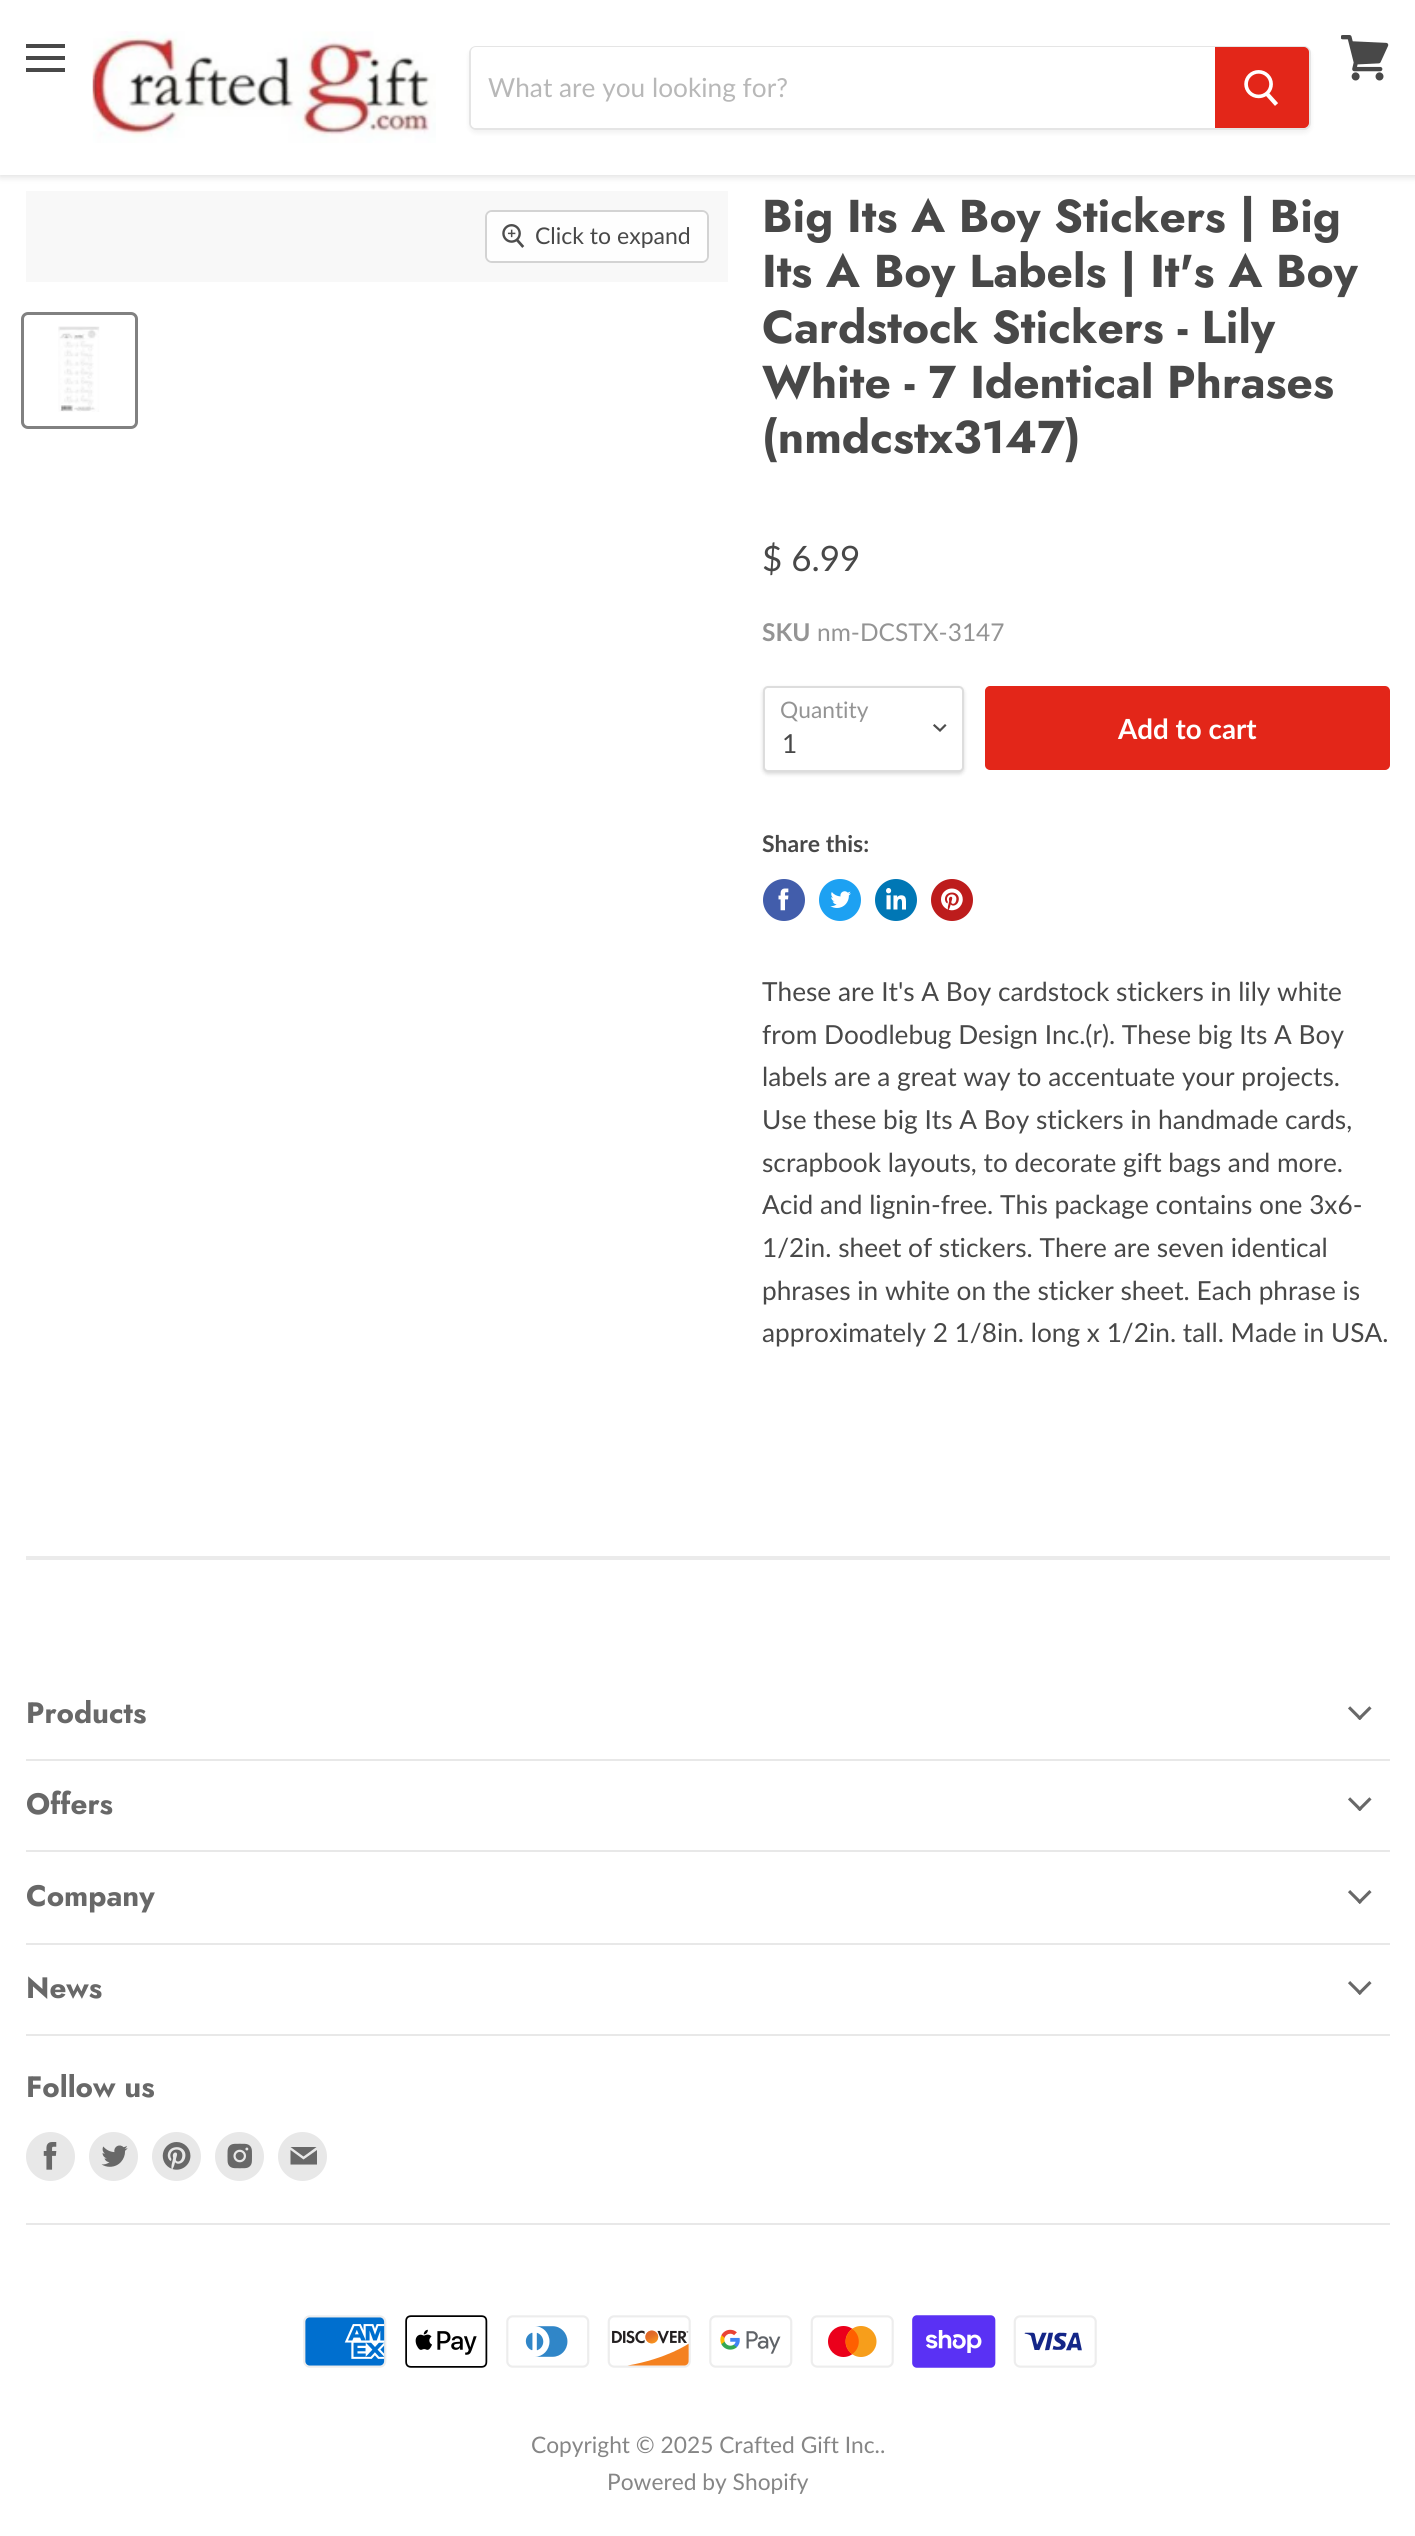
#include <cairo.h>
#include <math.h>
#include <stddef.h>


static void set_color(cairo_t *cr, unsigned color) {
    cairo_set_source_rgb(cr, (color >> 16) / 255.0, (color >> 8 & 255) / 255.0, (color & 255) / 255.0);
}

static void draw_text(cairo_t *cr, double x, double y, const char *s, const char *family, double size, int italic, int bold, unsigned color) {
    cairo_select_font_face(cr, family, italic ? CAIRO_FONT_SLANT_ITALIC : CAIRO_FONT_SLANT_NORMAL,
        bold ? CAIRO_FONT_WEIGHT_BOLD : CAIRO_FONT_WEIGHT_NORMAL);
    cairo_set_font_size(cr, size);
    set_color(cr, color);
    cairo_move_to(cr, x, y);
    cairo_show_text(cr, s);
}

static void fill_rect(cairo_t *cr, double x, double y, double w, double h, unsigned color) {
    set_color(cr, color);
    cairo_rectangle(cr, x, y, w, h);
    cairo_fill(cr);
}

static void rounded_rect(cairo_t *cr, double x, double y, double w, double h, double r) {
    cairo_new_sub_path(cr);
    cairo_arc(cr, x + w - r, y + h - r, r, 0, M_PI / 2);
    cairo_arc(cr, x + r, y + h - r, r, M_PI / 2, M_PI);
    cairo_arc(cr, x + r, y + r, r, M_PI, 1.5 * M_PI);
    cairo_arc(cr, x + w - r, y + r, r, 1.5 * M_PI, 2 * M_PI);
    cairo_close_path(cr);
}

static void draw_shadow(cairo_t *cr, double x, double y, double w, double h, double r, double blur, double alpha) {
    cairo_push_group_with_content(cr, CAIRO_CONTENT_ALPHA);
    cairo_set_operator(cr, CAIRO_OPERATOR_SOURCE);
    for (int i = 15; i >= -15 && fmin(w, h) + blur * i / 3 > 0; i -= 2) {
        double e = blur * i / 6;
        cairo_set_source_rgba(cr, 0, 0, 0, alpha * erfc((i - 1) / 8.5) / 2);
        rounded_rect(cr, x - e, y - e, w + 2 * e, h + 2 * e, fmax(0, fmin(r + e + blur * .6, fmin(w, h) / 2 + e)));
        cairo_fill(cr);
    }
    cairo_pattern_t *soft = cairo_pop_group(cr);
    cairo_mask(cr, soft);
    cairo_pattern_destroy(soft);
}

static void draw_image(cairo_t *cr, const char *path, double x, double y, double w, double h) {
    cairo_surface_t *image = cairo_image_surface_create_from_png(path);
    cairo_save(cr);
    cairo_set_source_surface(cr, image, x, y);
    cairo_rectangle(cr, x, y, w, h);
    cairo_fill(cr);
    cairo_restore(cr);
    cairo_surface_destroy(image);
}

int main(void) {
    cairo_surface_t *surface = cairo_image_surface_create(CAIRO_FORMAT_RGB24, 1415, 2536);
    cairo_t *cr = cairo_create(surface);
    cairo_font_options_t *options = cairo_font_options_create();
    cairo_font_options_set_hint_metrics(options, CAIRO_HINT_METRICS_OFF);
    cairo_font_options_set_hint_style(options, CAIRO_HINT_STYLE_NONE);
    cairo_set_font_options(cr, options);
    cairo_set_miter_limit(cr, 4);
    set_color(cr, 0xFFFFFF);
    cairo_paint(cr);
    set_color(cr, 0x808080);
    draw_shadow(cr, 0, 2, 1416, 175, 0, 3.5, 0.25);
    fill_rect(cr, 0, 0, 1415, 175, 0xFFFFFF);
    fill_rect(cr, 26, 44, 39, 4, 0x484848);
    fill_rect(cr, 26, 56, 39, 4, 0x484848);
    fill_rect(cr, 26, 68, 39, 4, 0x484848);
    draw_image(cr, "assets/img1.png", 1341, 35, 48, 46);
    draw_image(cr, "assets/img2.png", 92, 31, 344, 112);
    cairo_save(cr);
    cairo_set_fill_rule(cr, CAIRO_FILL_RULE_EVEN_ODD);
    cairo_new_path(cr);
    cairo_move_to(cr, 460, 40);
    cairo_line_to(cr, 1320, 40);
    cairo_line_to(cr, 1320, 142);
    cairo_line_to(cr, 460, 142);
    cairo_close_path(cr);
    cairo_move_to(cr, 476, 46);
    cairo_line_to(cr, 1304, 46);
    cairo_curve_to(cr, 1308, 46, 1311, 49, 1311, 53);
    cairo_line_to(cr, 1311, 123);
    cairo_curve_to(cr, 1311, 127, 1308, 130, 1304, 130);
    cairo_line_to(cr, 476, 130);
    cairo_curve_to(cr, 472, 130, 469, 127, 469, 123);
    cairo_line_to(cr, 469, 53);
    cairo_curve_to(cr, 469, 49, 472, 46, 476, 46);
    cairo_close_path(cr);
    cairo_clip(cr);
    set_color(cr, 0x808080);
    draw_shadow(cr, 469, 49, 842, 84, 7, 2.5, 0.11);
    cairo_restore(cr);
    rounded_rect(cr, 470, 47, 840, 82, 6);
    cairo_set_source_rgba(cr, 0.502, 0.502, 0.502, 0.2);
    cairo_stroke(cr);
    set_color(cr, 0xFFFFFF);
    cairo_new_path(cr);
    cairo_move_to(cr, 476, 47);
    cairo_line_to(cr, 1215, 47);
    cairo_line_to(cr, 1215, 128);
    cairo_line_to(cr, 476, 128);
    cairo_curve_to(cr, 473, 128, 471, 126, 471, 123);
    cairo_line_to(cr, 471, 52);
    cairo_curve_to(cr, 471, 49, 473, 47, 476, 47);
    cairo_close_path(cr);
    cairo_fill(cr);
    draw_text(cr, 488, 97, "What are you looking for?", "Lato", 26.25, 0, 0, 0xB8B8B8);
    set_color(cr, 0xE32619);
    cairo_new_path(cr);
    cairo_move_to(cr, 1216, 48);
    cairo_line_to(cr, 1304, 48);
    cairo_curve_to(cr, 1306, 48, 1308, 50, 1308, 52);
    cairo_line_to(cr, 1308, 123);
    cairo_curve_to(cr, 1308, 125, 1306, 127, 1304, 127);
    cairo_line_to(cr, 1216, 127);
    cairo_close_path(cr);
    cairo_fill_preserve(cr);
    cairo_stroke(cr);
    draw_image(cr, "assets/img3.png", 1244, 70, 34, 36);
    fill_rect(cr, 26, 191, 702, 91, 0xF8F8F8);
    rounded_rect(cr, 486, 211, 222, 51, 6);
    set_color(cr, 0xD3D3D3);
    cairo_stroke(cr);
    cairo_set_source_rgba(cr, 1, 1, 1, 0.9);
    rounded_rect(cr, 487, 212, 220, 49, 5);
    cairo_fill(cr);
    draw_image(cr, "assets/img4.png", 502, 224, 23, 24);
    draw_text(cr, 535, 244, "Click to expand", "Lato", 23, 0, 0, 0x484848);
    rounded_rect(cr, 22.5, 313.5, 114, 114, 5.5);
    set_color(cr, 0x818181);
    cairo_set_line_width(cr, 3);
    cairo_stroke(cr);
    draw_image(cr, "assets/img5.png", 58, 326, 42, 86);
    draw_text(cr, 762, 232, "Big Its A Boy Stickers | Big", "Jost", 46, 0, 1, 0x484848);
    draw_text(cr, 762, 287, "Its A Boy Labels | It's A Boy", "Jost", 46, 0, 1, 0x484848);
    draw_text(cr, 762, 343, "Cardstock Stickers - Lily", "Jost", 46, 0, 1, 0x484848);
    draw_text(cr, 762, 398, "White - 7 Identical Phrases", "Jost", 46, 0, 1, 0x484848);
    draw_text(cr, 762, 453, "(nmdcstx3147)", "Jost", 46, 0, 1, 0x484848);
    draw_text(cr, 762, 571, "$ 6.99", "Lato", 35, 0, 0, 0x484848);
    draw_text(cr, 762, 641, "SKU", "Lato", 24.5, 0, 1, 0x949494);
    draw_text(cr, 817, 641, "nm-DCSTX-3147", "Lato", 24.5, 0, 0, 0x949494);
    set_color(cr, 0x000000);
    draw_shadow(cr, 763, 688, 201, 86, 5, 2, 0.15);
    set_color(cr, 0xFFFFFF);
    rounded_rect(cr, 764, 687, 199, 84, 4);
    cairo_fill_preserve(cr);
    set_color(cr, 0xDDDDDD);
    cairo_set_line_width(cr, 2);
    cairo_stroke(cr);
    draw_text(cr, 780, 718, "Quantity", "Lato", 22.75, 0, 0, 0x949494);
    cairo_new_path(cr);
    cairo_move_to(cr, 940, 730.5);
    cairo_line_to(cr, 945, 725.5);
    cairo_move_to(cr, 940, 730.5);
    cairo_line_to(cr, 934.5, 725.5);
    set_color(cr, 0x4D4D4D);
    cairo_set_line_width(cr, 2.2);
    cairo_set_line_cap(cr, CAIRO_LINE_CAP_SQUARE);
    cairo_stroke(cr);
    draw_text(cr, 782, 753, "1", "Lato", 26.25, 0, 0, 0x484848);
    set_color(cr, 0xE32619);
    rounded_rect(cr, 986, 687, 403, 82, 4);
    cairo_fill_preserve(cr);
    cairo_set_line_width(cr, 2);
    cairo_set_line_cap(cr, CAIRO_LINE_CAP_BUTT);
    cairo_stroke(cr);
    draw_text(cr, 1118, 739, "Add to cart", "Lato", 27.75, 0, 1, 0xFFFFFF);
    draw_text(cr, 762, 852, "Share this:", "Lato", 23, 0, 1, 0x484848);
    set_color(cr, 0x425DAB);
    cairo_new_path(cr);
    cairo_arc(cr, 784, 900, 21, 0, 2 * M_PI);
    cairo_fill(cr);
    draw_image(cr, "assets/img6.png", 778, 888, 11, 23);
    set_color(cr, 0x1DA1F2);
    cairo_arc(cr, 840, 900, 21, 0, 2 * M_PI);
    cairo_fill(cr);
    draw_image(cr, "assets/img7.png", 830, 891, 21, 17);
    set_color(cr, 0x0077B5);
    cairo_arc(cr, 896, 900, 21, 0, 2 * M_PI);
    cairo_fill(cr);
    draw_image(cr, "assets/img8.png", 886, 888, 20, 22);
    set_color(cr, 0xBD1C1C);
    cairo_arc(cr, 952, 900, 21, 0, 2 * M_PI);
    cairo_fill(cr);
    draw_image(cr, "assets/img9.png", 941, 888, 22, 23);
    draw_text(cr, 762, 1001, "These are It's A Boy cardstock stickers in lily white", "Lato", 26.25, 0, 0, 0x484848);
    draw_text(cr, 762, 1044, "from Doodlebug Design Inc.(r). These big Its A Boy", "Lato", 26.25, 0, 0, 0x484848);
    draw_text(cr, 762, 1086, "labels are a great way to accentuate your projects.", "Lato", 26.25, 0, 0, 0x484848);
    draw_text(cr, 762, 1129, "Use these big Its A Boy stickers in handmade cards,", "Lato", 26.25, 0, 0, 0x484848);
    draw_text(cr, 762, 1172, "scrapbook layouts, to decorate gift bags and more.", "Lato", 26.25, 0, 0, 0x484848);
    draw_text(cr, 762, 1214, "Acid and lignin-free. This package contains one 3x6-", "Lato", 26.25, 0, 0, 0x484848);
    draw_text(cr, 762, 1257, "1/2in. sheet of stickers. There are seven identical", "Lato", 26.25, 0, 0, 0x484848);
    draw_text(cr, 762, 1300, "phrases in white on the sticker sheet. Each phrase is", "Lato", 26.25, 0, 0, 0x484848);
    draw_text(cr, 762, 1342, "approximately 2 1/8in. long x 1/2in. tall. Made in USA.", "Lato", 26.25, 0, 0, 0x484848);
    cairo_set_source_rgba(cr, 0.502, 0.502, 0.502, 0.16);
    cairo_rectangle(cr, 26, 1556, 1364, 4);
    cairo_fill(cr);
    fill_rect(cr, 26, 1759, 1364, 2, 0xE8E8E8);
    draw_text(cr, 26, 1723, "Products", "Jost", 29.5, 0, 1, 0x686868);
    draw_image(cr, "assets/img10.png", 1348, 1706, 24, 14);
    fill_rect(cr, 26, 1850, 1364, 2, 0xE8E8E8);
    draw_text(cr, 26, 1814, "Offers", "Jost", 29.5, 0, 1, 0x686868);
    draw_image(cr, "assets/img10.png", 1348, 1797, 24, 14);
    fill_rect(cr, 26, 1943, 1364, 2, 0xE8E8E8);
    draw_text(cr, 26, 1906, "Company", "Jost", 29.5, 0, 1, 0x686868);
    draw_image(cr, "assets/img11.png", 1348, 1890, 24, 14);
    fill_rect(cr, 26, 2034, 1364, 2, 0xE8E8E8);
    draw_text(cr, 26, 1998, "News", "Jost", 29.5, 0, 1, 0x686868);
    draw_image(cr, "assets/img11.png", 1348, 1981, 24, 14);
    fill_rect(cr, 26, 2223, 1364, 2, 0xE8E8E8);
    draw_text(cr, 26, 2097, "Follow us", "Jost", 29.5, 0, 1, 0x686868);
    set_color(cr, 0xE8E8E8);
    cairo_new_path(cr);
    cairo_arc(cr, 50.5, 2156.5, 24.5, 0, 2 * M_PI);
    cairo_fill(cr);
    draw_image(cr, "assets/img12.png", 43, 2142, 14, 28);
    cairo_arc(cr, 113.5, 2156.5, 24.5, 0, 2 * M_PI);
    cairo_fill(cr);
    draw_image(cr, "assets/img13.png", 101, 2145, 27, 22);
    cairo_arc(cr, 176.5, 2156.5, 24.5, 0, 2 * M_PI);
    cairo_fill(cr);
    draw_image(cr, "assets/img14.png", 162, 2142, 29, 28);
    cairo_arc(cr, 239.5, 2156.5, 24.5, 0, 2 * M_PI);
    cairo_fill(cr);
    draw_image(cr, "assets/img15.png", 227, 2143, 25, 26);
    cairo_arc(cr, 302.5, 2156.5, 24.5, 0, 2 * M_PI);
    cairo_fill(cr);
    set_color(cr, 0x686868);
    cairo_set_fill_rule(cr, CAIRO_FILL_RULE_EVEN_ODD);
    cairo_new_path(cr);
    cairo_move_to(cr, 316.5, 2147);
    cairo_line_to(cr, 290.5, 2147);
    cairo_line_to(cr, 303.5, 2156.5);
    cairo_close_path(cr);
    cairo_move_to(cr, 303.5, 2159.5);
    cairo_line_to(cr, 290.5, 2150);
    cairo_line_to(cr, 290.5, 2164.5);
    cairo_line_to(cr, 317, 2164.5);
    cairo_line_to(cr, 317, 2150);
    cairo_close_path(cr);
    cairo_fill(cr);
    draw_image(cr, "assets/img16.png", 303, 2315, 84, 53);
    draw_image(cr, "assets/img17.png", 405, 2315, 83, 53);
    draw_image(cr, "assets/img18.png", 506, 2315, 84, 53);
    draw_image(cr, "assets/img19.png", 607, 2315, 84, 53);
    draw_image(cr, "assets/img20.png", 709, 2315, 84, 53);
    draw_image(cr, "assets/img21.png", 810, 2315, 84, 53);
    draw_image(cr, "assets/img22.png", 912, 2315, 84, 53);
    draw_image(cr, "assets/img23.png", 1013, 2315, 84, 53);
    draw_text(cr, 531, 2453, "Copyright © 2025 Crafted Gift Inc..", "Lato", 22.75, 0, 0, 0x868686);
    draw_text(cr, 607, 2490, "Powered by Shopify", "Lato", 22.75, 0, 0, 0x868686);
    cairo_surface_write_to_png(surface, "output.png");
    cairo_font_options_destroy(options);
    cairo_destroy(cr);
    cairo_surface_destroy(surface);
    return 0;
}
